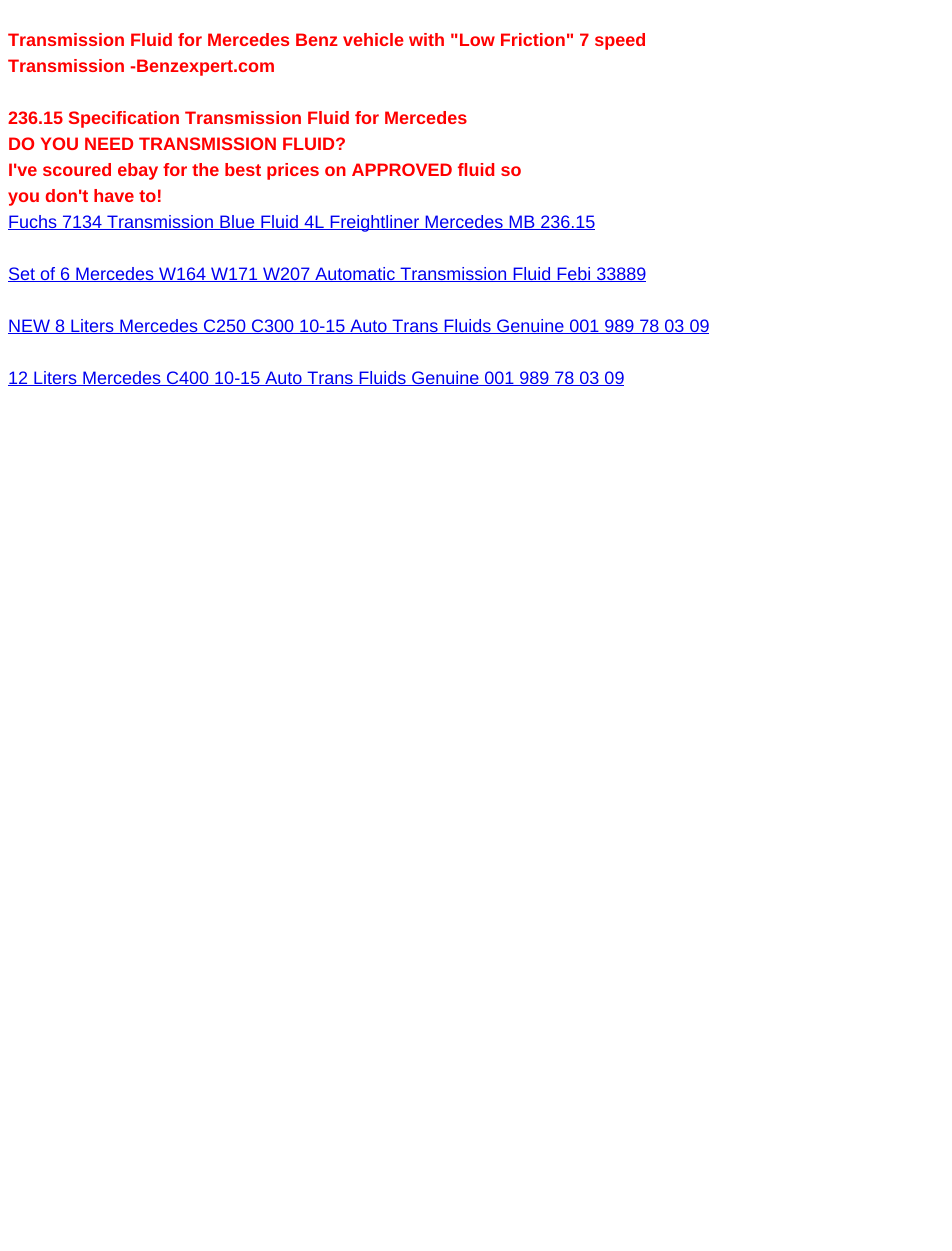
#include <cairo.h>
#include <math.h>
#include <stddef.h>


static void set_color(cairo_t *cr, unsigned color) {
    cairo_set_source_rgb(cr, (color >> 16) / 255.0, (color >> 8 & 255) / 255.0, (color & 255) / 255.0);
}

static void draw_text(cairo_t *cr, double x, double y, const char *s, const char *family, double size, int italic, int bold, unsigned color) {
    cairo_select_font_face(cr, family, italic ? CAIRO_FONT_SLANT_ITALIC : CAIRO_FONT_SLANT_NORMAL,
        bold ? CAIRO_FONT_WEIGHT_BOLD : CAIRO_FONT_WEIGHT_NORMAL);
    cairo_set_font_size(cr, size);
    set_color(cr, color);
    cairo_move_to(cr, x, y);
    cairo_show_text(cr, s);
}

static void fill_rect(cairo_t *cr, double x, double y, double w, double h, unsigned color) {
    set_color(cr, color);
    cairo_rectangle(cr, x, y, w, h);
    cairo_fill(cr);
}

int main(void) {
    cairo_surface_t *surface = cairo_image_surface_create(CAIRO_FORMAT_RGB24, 952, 1251);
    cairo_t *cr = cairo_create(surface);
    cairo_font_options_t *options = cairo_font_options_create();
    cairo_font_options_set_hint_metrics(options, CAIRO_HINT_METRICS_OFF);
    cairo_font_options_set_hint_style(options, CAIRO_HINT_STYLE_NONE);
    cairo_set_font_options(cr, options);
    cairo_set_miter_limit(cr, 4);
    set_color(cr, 0xFFFFFF);
    cairo_paint(cr);
    draw_text(cr, 8, 46, "Transmission Fluid for Mercedes Benz vehicle with \"Low Friction\" 7 speed", "Liberation Sans", 18, 0, 1, 0xFF0000);
    draw_text(cr, 8, 72, "Transmission -Benzexpert.com", "Liberation Sans", 18, 0, 1, 0xFF0000);
    draw_text(cr, 8, 124, "236.15 Specification Transmission Fluid for Mercedes", "Liberation Sans", 18, 0, 1, 0xFF0000);
    draw_text(cr, 8, 150, "DO YOU NEED TRANSMISSION FLUID?", "Liberation Sans", 18, 0, 1, 0xFF0000);
    draw_text(cr, 8, 176, "I've scoured ebay for the best prices on APPROVED fluid so", "Liberation Sans", 18, 0, 1, 0xFF0000);
    draw_text(cr, 8, 202, "you don't have to!", "Liberation Sans", 18, 0, 1, 0xFF0000);
    fill_rect(cr, 8, 229, 587, 1, 0x0000EE);
    draw_text(cr, 8, 228, "Fuchs 7134 Transmission Blue Fluid 4L Freightliner Mercedes MB 236.15", "Liberation Sans", 18, 0, 0, 0x0000EE);
    draw_text(cr, 8, 280, "Set of 6 Mercedes W164 W171 W207 Automatic Transmission Fluid Febi 33889", "Liberation Sans", 18, 0, 0, 0x0000EE);
    fill_rect(cr, 8, 281, 638, 1, 0x0000EE);
    draw_text(cr, 8, 332, "NEW 8 Liters Mercedes C250 C300 10-15 Auto Trans Fluids Genuine 001 989 78 03 09", "Liberation Sans", 18, 0, 0, 0x0000EE);
    fill_rect(cr, 8, 333, 701, 1, 0x0000EE);
    draw_text(cr, 8, 384, "12 Liters Mercedes C400 10-15 Auto Trans Fluids Genuine 001 989 78 03 09", "Liberation Sans", 18, 0, 0, 0x0000EE);
    fill_rect(cr, 8, 385, 616, 1, 0x0000EE);
    cairo_surface_write_to_png(surface, "output.png");
    cairo_font_options_destroy(options);
    cairo_destroy(cr);
    cairo_surface_destroy(surface);
    return 0;
}
